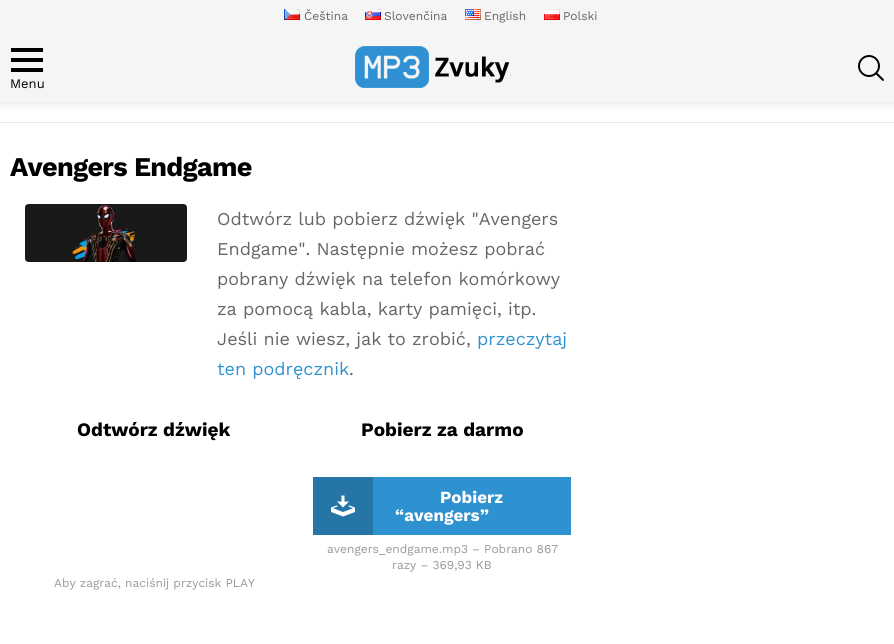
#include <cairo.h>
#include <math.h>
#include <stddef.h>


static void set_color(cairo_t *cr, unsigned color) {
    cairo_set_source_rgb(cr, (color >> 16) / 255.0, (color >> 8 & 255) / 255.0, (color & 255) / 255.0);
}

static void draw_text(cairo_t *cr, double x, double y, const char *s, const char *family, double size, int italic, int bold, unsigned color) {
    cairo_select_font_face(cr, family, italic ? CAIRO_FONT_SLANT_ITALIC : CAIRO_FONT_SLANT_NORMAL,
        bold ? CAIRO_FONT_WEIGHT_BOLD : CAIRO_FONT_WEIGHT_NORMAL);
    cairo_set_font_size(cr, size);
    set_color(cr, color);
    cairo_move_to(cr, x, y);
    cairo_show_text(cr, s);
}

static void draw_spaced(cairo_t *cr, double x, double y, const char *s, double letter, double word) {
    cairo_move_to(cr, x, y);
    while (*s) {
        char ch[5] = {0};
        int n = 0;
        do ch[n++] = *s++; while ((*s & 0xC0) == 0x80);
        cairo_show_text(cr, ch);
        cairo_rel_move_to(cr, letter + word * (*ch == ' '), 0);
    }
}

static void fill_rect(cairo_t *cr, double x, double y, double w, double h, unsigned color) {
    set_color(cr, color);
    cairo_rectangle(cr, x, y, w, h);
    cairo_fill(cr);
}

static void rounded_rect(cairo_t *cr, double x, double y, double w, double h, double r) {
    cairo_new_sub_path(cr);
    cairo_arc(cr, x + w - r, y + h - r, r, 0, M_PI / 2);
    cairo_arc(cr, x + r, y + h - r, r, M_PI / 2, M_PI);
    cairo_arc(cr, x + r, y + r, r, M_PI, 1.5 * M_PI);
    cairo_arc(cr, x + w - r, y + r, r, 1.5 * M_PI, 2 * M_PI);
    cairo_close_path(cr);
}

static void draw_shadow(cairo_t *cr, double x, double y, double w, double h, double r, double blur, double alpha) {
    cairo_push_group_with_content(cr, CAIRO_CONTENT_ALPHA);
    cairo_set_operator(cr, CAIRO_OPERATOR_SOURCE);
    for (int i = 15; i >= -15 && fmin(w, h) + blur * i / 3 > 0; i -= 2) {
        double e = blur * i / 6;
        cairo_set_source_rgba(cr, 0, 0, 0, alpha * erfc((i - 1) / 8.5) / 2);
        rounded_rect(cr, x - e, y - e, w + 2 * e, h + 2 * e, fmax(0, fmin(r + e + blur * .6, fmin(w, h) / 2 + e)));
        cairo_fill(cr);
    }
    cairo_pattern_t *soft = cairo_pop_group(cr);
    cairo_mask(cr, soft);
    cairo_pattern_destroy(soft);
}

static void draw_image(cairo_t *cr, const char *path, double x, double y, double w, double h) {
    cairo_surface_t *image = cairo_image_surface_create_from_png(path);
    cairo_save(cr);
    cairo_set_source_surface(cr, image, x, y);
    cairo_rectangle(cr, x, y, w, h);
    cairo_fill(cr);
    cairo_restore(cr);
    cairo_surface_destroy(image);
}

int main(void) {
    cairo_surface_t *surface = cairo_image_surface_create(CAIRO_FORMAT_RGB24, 894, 644);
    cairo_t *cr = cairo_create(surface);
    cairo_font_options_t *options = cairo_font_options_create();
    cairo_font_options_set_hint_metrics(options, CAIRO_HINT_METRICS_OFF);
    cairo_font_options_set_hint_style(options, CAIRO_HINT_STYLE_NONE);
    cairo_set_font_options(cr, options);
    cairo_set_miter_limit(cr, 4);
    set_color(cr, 0xFFFFFF);
    cairo_paint(cr);
    set_color(cr, 0x000000);
    draw_shadow(cr, 0, 32, 894, 70, 0, 5, 0.15);
    fill_rect(cr, 0, 0, 894, 102, 0xF5F5F5);
    draw_image(cr, "assets/img1.png", 284, 9, 16, 11);
    draw_text(cr, 304, 20, "Čeština", "Work Sans", 12, 0, 0, 0x666666);
    draw_image(cr, "assets/img2.png", 365, 9, 16, 11);
    draw_text(cr, 384, 20, "Slovenčina", "Work Sans", 12, 0, 0, 0x666666);
    draw_image(cr, "assets/img3.png", 465, 9, 16, 11);
    draw_text(cr, 484, 20, "English", "Work Sans", 12, 0, 0, 0x666666);
    draw_image(cr, "assets/img4.png", 544, 9, 16, 11);
    draw_text(cr, 563, 20, "Polski", "Work Sans", 12, 0, 0, 0x666666);
    draw_image(cr, "assets/img5.png", 355, 46, 156, 42);
    draw_image(cr, "assets/img6.png", 858, 55, 26, 26);
    draw_image(cr, "assets/img7.png", 11, 48, 32, 24);
    draw_text(cr, 10, 88, "Menu", "Work Sans", 13, 0, 0, 0x000000);
    fill_rect(cr, 0, 122, 894, 1, 0xE6E6E6);
    cairo_select_font_face(cr, "Work Sans", CAIRO_FONT_SLANT_NORMAL, CAIRO_FONT_WEIGHT_BOLD);
    cairo_set_font_size(cr, 27);
    set_color(cr, 0x000000);
    draw_spaced(cr, 10, 176, "Avengers Endgame", -0.7, 0);
    draw_image(cr, "assets/img8.png", 25, 204, 162, 58);
    draw_text(cr, 217, 225, "Odtwórz lub pobierz dźwięk \"Avengers", "Work Sans", 18, 0, 0, 0x666666);
    draw_text(cr, 217, 255, "Endgame\". Następnie możesz pobrać", "Work Sans", 18, 0, 0, 0x666666);
    draw_text(cr, 217, 285, "pobrany dźwięk na telefon komórkowy", "Work Sans", 18, 0, 0, 0x666666);
    draw_text(cr, 217, 315, "za pomocą kabla, karty pamięci, itp.", "Work Sans", 18, 0, 0, 0x666666);
    draw_text(cr, 217, 345, "Jeśli nie wiesz, jak to zrobić,", "Work Sans", 18, 0, 0, 0x666666);
    draw_text(cr, 477, 345, "przeczytaj", "Work Sans", 18, 0, 0, 0x2E92D0);
    draw_text(cr, 217, 375, "ten podręcznik", "Work Sans", 18, 0, 0, 0x2E92D0);
    draw_text(cr, 349, 375, ".", "Work Sans", 18, 0, 0, 0x666666);
    draw_text(cr, 77, 436, "Odtwórz dźwięk", "Work Sans", 19, 0, 1, 0x000000);
    draw_text(cr, 54, 587, "Aby zagrać, naciśnij przycisk PLAY", "Work Sans", 12, 0, 0, 0x999999);
    draw_text(cr, 361, 436, "Pobierz za darmo", "Work Sans", 19, 0, 1, 0x000000);
    fill_rect(cr, 373, 477, 198, 58, 0x2E92D0);
    fill_rect(cr, 313, 477, 60, 58, 0x2575A6);
    draw_image(cr, "assets/img9.png", 331, 495, 24, 22);
    draw_text(cr, 440, 503, "Pobierz", "Work Sans", 17, 0, 1, 0xFFFFFF);
    draw_text(cr, 395, 521, "“avengers”", "Work Sans", 17, 0, 1, 0xFFFFFF);
    draw_text(cr, 327, 553, "avengers_endgame.mp3 – Pobrano 867", "Work Sans", 12, 0, 0, 0x999999);
    draw_text(cr, 392, 569, "razy – 369,93 KB", "Work Sans", 12, 0, 0, 0x999999);
    cairo_surface_write_to_png(surface, "output.png");
    cairo_font_options_destroy(options);
    cairo_destroy(cr);
    cairo_surface_destroy(surface);
    return 0;
}
